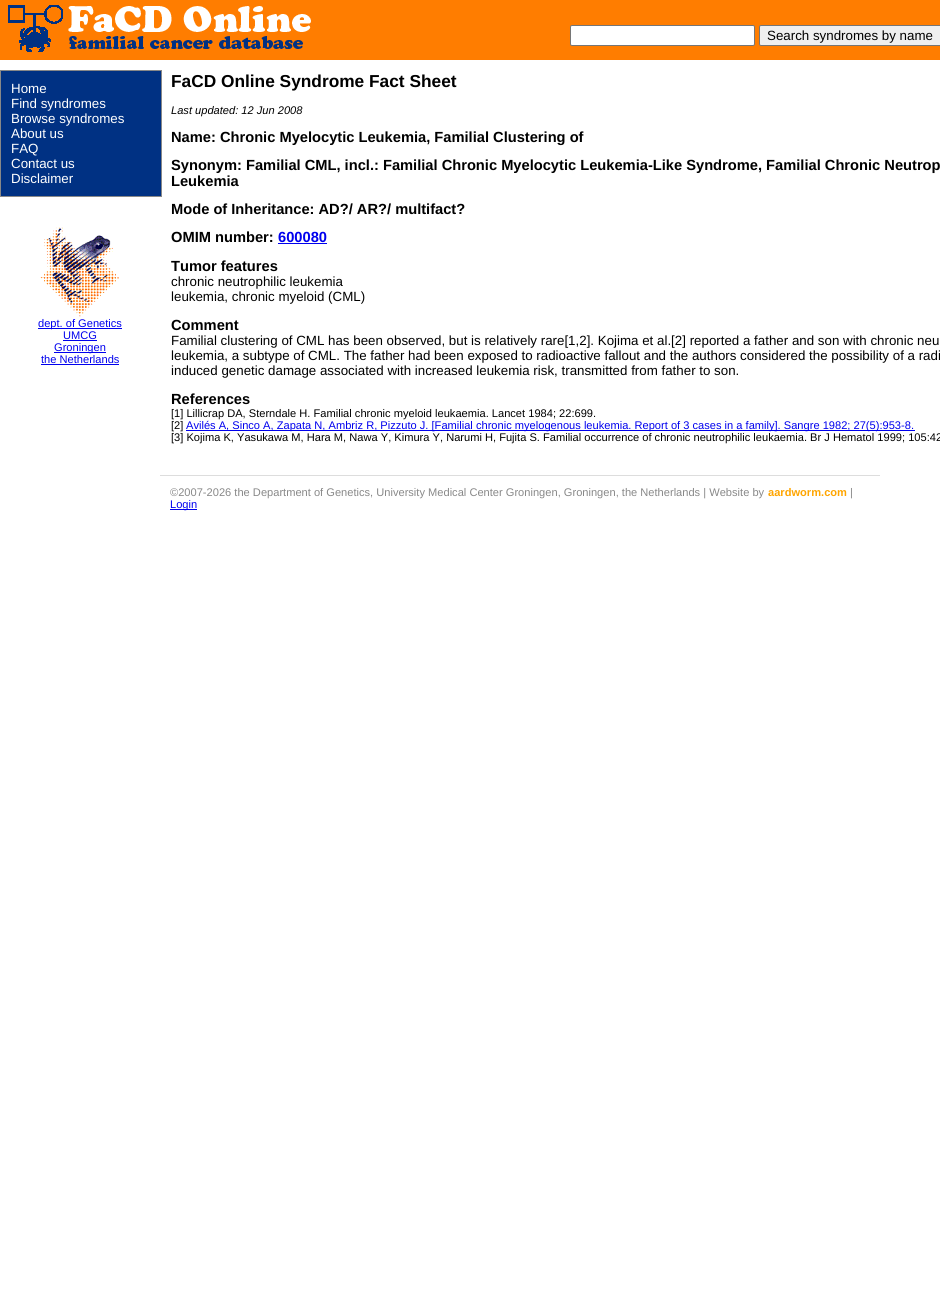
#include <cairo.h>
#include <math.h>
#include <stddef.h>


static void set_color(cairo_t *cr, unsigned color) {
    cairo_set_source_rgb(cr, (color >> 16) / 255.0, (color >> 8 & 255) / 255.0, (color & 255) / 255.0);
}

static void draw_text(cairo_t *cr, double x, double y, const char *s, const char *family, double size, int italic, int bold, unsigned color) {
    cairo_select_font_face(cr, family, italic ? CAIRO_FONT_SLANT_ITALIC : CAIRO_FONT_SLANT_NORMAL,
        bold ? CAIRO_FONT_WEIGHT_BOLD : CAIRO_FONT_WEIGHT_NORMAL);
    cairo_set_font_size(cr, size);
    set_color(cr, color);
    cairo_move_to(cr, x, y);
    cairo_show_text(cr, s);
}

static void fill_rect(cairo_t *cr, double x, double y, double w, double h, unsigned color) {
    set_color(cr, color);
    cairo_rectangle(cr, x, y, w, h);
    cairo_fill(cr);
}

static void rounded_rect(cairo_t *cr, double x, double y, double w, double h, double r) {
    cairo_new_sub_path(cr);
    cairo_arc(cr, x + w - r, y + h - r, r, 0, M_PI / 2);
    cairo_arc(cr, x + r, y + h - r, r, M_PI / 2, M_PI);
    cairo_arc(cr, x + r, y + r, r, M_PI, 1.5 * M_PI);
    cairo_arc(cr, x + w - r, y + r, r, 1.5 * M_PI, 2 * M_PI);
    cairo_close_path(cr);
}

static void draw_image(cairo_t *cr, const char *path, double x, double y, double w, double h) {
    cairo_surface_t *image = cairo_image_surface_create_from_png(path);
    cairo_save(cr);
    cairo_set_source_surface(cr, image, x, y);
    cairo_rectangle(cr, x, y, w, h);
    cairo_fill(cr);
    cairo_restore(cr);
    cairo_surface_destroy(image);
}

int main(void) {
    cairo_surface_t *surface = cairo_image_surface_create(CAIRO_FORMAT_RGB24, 940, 1302);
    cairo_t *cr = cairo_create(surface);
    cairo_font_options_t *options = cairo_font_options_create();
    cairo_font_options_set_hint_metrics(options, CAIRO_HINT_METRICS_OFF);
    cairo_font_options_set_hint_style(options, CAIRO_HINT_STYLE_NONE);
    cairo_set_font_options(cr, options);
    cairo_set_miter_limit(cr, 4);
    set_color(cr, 0xFFFFFF);
    cairo_paint(cr);
    draw_image(cr, "assets/img1.png", 0, 0, 940, 60);
    set_color(cr, 0xFFFFFF);
    rounded_rect(cr, 570.5, 25.5, 184, 20, 1.5);
    cairo_fill_preserve(cr);
    set_color(cr, 0x767676);
    cairo_set_line_width(cr, 1);
    cairo_stroke(cr);
    set_color(cr, 0xEFEFEF);
    rounded_rect(cr, 759.5, 25.5, 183, 20, 1.5);
    cairo_fill_preserve(cr);
    set_color(cr, 0x767676);
    cairo_stroke(cr);
    draw_text(cr, 767, 40, "Search syndromes by name", "Liberation Sans", 13.33, 0, 0, 0x000000);
    set_color(cr, 0x003183);
    cairo_rectangle(cr, 0.5, 70.5, 161, 126);
    cairo_fill_preserve(cr);
    set_color(cr, 0x888888);
    cairo_stroke(cr);
    draw_text(cr, 11, 93, "Home", "Liberation Sans", 13.33, 0, 0, 0xFFFFFF);
    draw_text(cr, 11, 108, "Find syndromes", "Liberation Sans", 13.33, 0, 0, 0xFFFFFF);
    draw_text(cr, 11, 123, "Browse syndromes", "Liberation Sans", 13.33, 0, 0, 0xFFFFFF);
    draw_text(cr, 11, 138, "About us", "Liberation Sans", 13.33, 0, 0, 0xFFFFFF);
    draw_text(cr, 11, 153, "FAQ", "Liberation Sans", 13.33, 0, 0, 0xFFFFFF);
    draw_text(cr, 11, 168, "Contact us", "Liberation Sans", 13.33, 0, 0, 0xFFFFFF);
    draw_text(cr, 11, 183, "Disclaimer", "Liberation Sans", 13.33, 0, 0, 0xFFFFFF);
    draw_image(cr, "assets/img2.png", 40, 227, 79, 90);
    fill_rect(cr, 38, 328, 84, 1, 0x0000EE);
    draw_text(cr, 38, 327, "dept. of Genetics", "Liberation Sans", 11.1, 0, 0, 0x0000EE);
    draw_text(cr, 63, 339, "UMCG", "Liberation Sans", 11.1, 0, 0, 0x0000EE);
    fill_rect(cr, 63, 340, 34, 1, 0x0000EE);
    fill_rect(cr, 54, 352, 52, 1, 0x0000EE);
    draw_text(cr, 54, 351, "Groningen", "Liberation Sans", 11.1, 0, 0, 0x0000EE);
    draw_text(cr, 41, 363, "the Netherlands", "Liberation Sans", 11.1, 0, 0, 0x0000EE);
    fill_rect(cr, 41, 364, 78, 1, 0x0000EE);
    draw_text(cr, 171, 87, "FaCD Online Syndrome Fact Sheet", "Liberation Sans", 17.3, 0, 1, 0x000000);
    draw_text(cr, 171, 114, "Last updated: 12 Jun 2008", "Liberation Sans", 11.1, 1, 0, 0x000000);
    draw_text(cr, 171, 142, "Name: Chronic Myelocytic Leukemia, Familial Clustering of", "Liberation Sans", 14.67, 0, 1, 0x000000);
    draw_text(cr, 171, 170, "Synonym: Familial CML, incl.: Familial Chronic Myelocytic Leukemia-Like Syndrome, Familial Chronic Neutrop", "Liberation Sans", 14.67, 0, 1, 0x000000);
    draw_text(cr, 171, 186, "Leukemia", "Liberation Sans", 14.67, 0, 1, 0x000000);
    draw_text(cr, 171, 214, "Mode of Inheritance: AD?/ AR?/ multifact?", "Liberation Sans", 14.67, 0, 1, 0x000000);
    draw_text(cr, 171, 242, "OMIM number:", "Liberation Sans", 14.67, 0, 1, 0x000000);
    draw_text(cr, 278, 242, "600080", "Liberation Sans", 14.67, 0, 1, 0x0000EE);
    fill_rect(cr, 278, 243, 49, 1, 0x0000EE);
    draw_text(cr, 171, 271, "Tumor features", "Liberation Sans", 14.67, 0, 1, 0x000000);
    draw_text(cr, 171, 286, "chronic neutrophilic leukemia", "Liberation Sans", 13.33, 0, 0, 0x000000);
    draw_text(cr, 171, 301, "leukemia, chronic myeloid (CML)", "Liberation Sans", 13.33, 0, 0, 0x000000);
    draw_text(cr, 171, 330, "Comment", "Liberation Sans", 14.67, 0, 1, 0x000000);
    draw_text(cr, 171, 345, "Familial clustering of CML has been observed, but is relatively rare[1,2]. Kojima et al.[2] reported a father and son with chronic neu", "Liberation Sans", 13.33, 0, 0, 0x000000);
    draw_text(cr, 171, 360, "leukemia, a subtype of CML. The father had been exposed to radioactive fallout and the authors considered the possibility of a radi", "Liberation Sans", 13.33, 0, 0, 0x000000);
    draw_text(cr, 171, 375, "induced genetic damage associated with increased leukemia risk, transmitted from father to son.", "Liberation Sans", 13.33, 0, 0, 0x000000);
    draw_text(cr, 171, 404, "References", "Liberation Sans", 14.67, 0, 1, 0x000000);
    draw_text(cr, 171, 417, "[1] Lillicrap DA, Sterndale H. Familial chronic myeloid leukaemia. Lancet 1984; 22:699.", "Liberation Sans", 11.1, 0, 0, 0x000000);
    draw_text(cr, 171, 429, "[2]", "Liberation Sans", 11.1, 0, 0, 0x000000);
    fill_rect(cr, 186, 430, 729, 1, 0x0000EE);
    draw_text(cr, 186, 429, "Avilés A, Sinco A, Zapata N, Ambriz R, Pizzuto J. [Familial chronic myelogenous leukemia. Report of 3 cases in a family]. Sangre 1982; 27(5):953-8.", "Liberation Sans", 11.1, 0, 0, 0x0000EE);
    draw_text(cr, 171, 441, "[3] Kojima K, Yasukawa M, Hara M, Nawa Y, Kimura Y, Narumi H, Fujita S. Familial occurrence of chronic neutrophilic leukaemia. Br J Hematol 1999; 105:42", "Liberation Sans", 11.1, 0, 0, 0x000000);
    fill_rect(cr, 160, 475, 720, 1, 0xDDDDDD);
    draw_text(cr, 170, 496, "©2007-2026 the Department of Genetics, University Medical Center Groningen, Groningen, the Netherlands | Website by", "Liberation Sans", 11.1, 0, 0, 0x888888);
    draw_text(cr, 768, 496, "aardworm.com", "Liberation Sans", 11.1, 0, 1, 0xFFA500);
    draw_text(cr, 850, 496, "|", "Liberation Sans", 11.1, 0, 0, 0x888888);
    fill_rect(cr, 170, 509, 27, 1, 0x0000EE);
    draw_text(cr, 170, 508, "Login", "Liberation Sans", 11.1, 0, 0, 0x0000EE);
    cairo_surface_write_to_png(surface, "output.png");
    cairo_font_options_destroy(options);
    cairo_destroy(cr);
    cairo_surface_destroy(surface);
    return 0;
}
